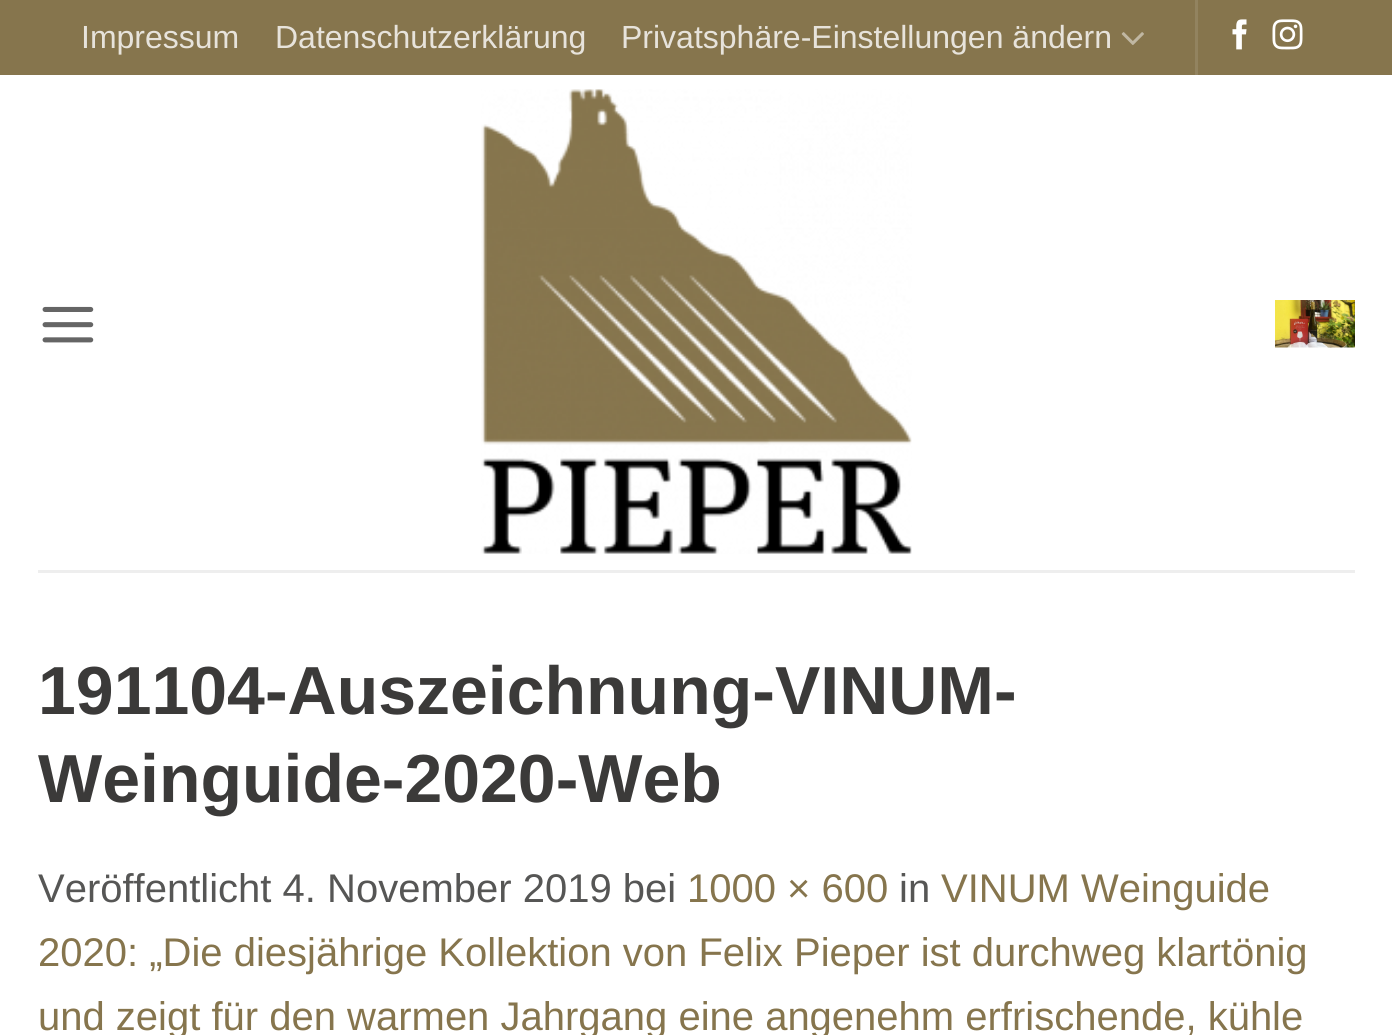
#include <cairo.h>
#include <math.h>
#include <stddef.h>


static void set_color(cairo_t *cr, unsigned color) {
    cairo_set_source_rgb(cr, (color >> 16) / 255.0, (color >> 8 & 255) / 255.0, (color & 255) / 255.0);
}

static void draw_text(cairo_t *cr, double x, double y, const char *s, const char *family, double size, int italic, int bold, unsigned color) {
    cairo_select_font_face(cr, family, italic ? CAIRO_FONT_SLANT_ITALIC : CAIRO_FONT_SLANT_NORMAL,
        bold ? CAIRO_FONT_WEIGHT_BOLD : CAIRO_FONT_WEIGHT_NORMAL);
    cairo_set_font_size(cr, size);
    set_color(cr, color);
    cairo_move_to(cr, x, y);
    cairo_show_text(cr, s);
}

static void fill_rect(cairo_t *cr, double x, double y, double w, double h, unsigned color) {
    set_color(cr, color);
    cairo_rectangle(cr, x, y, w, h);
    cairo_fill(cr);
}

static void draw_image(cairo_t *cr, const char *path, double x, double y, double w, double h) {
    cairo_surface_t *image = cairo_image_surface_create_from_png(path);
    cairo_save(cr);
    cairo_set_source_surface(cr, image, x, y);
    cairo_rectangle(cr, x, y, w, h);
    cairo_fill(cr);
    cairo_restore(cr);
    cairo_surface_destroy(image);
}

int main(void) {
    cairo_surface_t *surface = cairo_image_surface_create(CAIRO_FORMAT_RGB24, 1392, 1035);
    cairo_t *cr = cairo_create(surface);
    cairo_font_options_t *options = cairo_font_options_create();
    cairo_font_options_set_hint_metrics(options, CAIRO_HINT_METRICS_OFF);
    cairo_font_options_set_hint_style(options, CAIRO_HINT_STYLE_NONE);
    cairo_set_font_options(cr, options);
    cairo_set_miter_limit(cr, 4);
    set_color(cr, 0xFFFFFF);
    cairo_paint(cr);
    fill_rect(cr, 0, 0, 1392, 75, 0x86754D);
    draw_text(cr, 81, 48, "Impressum", "Liberation Sans", 32, 0, 0, 0xE7E3DB);
    draw_text(cr, 275, 48, "Datenschutzerklärung", "Liberation Sans", 32, 0, 0, 0xE7E3DB);
    draw_text(cr, 621, 48, "Privatsphäre-Einstellungen ändern", "Liberation Sans", 32, 0, 0, 0xE7E3DB);
    draw_image(cr, "assets/img1.png", 1121, 32, 23, 13);
    fill_rect(cr, 1195, 0, 3, 75, 0x92835F);
    draw_image(cr, "assets/img2.png", 1232, 19, 15, 31);
    draw_image(cr, "assets/img3.png", 1272, 19, 31, 31);
    draw_image(cr, "assets/img4.png", 42, 306, 52, 37);
    draw_image(cr, "assets/img5.png", 481, 89, 431, 465);
    draw_image(cr, "assets/img6.png", 1275, 300, 80, 48);
    fill_rect(cr, 38, 570, 1317, 3, 0xEEEEEE);
    draw_text(cr, 38, 714, "191104-Auszeichnung-VINUM-", "Liberation Sans", 68, 0, 1, 0x3B3A39);
    draw_text(cr, 38, 802, "Weinguide-2020-Web", "Liberation Sans", 68, 0, 1, 0x3B3A39);
    draw_text(cr, 38, 902, "Veröffentlicht 4. November 2019 bei", "Liberation Sans", 40, 0, 0, 0x565655);
    draw_text(cr, 687, 902, "1000 × 600", "Liberation Sans", 40, 0, 0, 0x86754D);
    draw_text(cr, 899, 902, "in", "Liberation Sans", 40, 0, 0, 0x565655);
    draw_text(cr, 941, 902, "VINUM Weinguide", "Liberation Sans", 40, 0, 0, 0x86754D);
    draw_text(cr, 38, 966, "2020: „Die diesjährige Kollektion von Felix Pieper ist durchweg klartönig", "Liberation Sans", 40, 0, 0, 0x86754D);
    draw_text(cr, 38, 1030, "und zeigt für den warmen Jahrgang eine angenehm erfrischende, kühle", "Liberation Sans", 40, 0, 0, 0x86754D);
    cairo_surface_write_to_png(surface, "output.png");
    cairo_font_options_destroy(options);
    cairo_destroy(cr);
    cairo_surface_destroy(surface);
    return 0;
}
